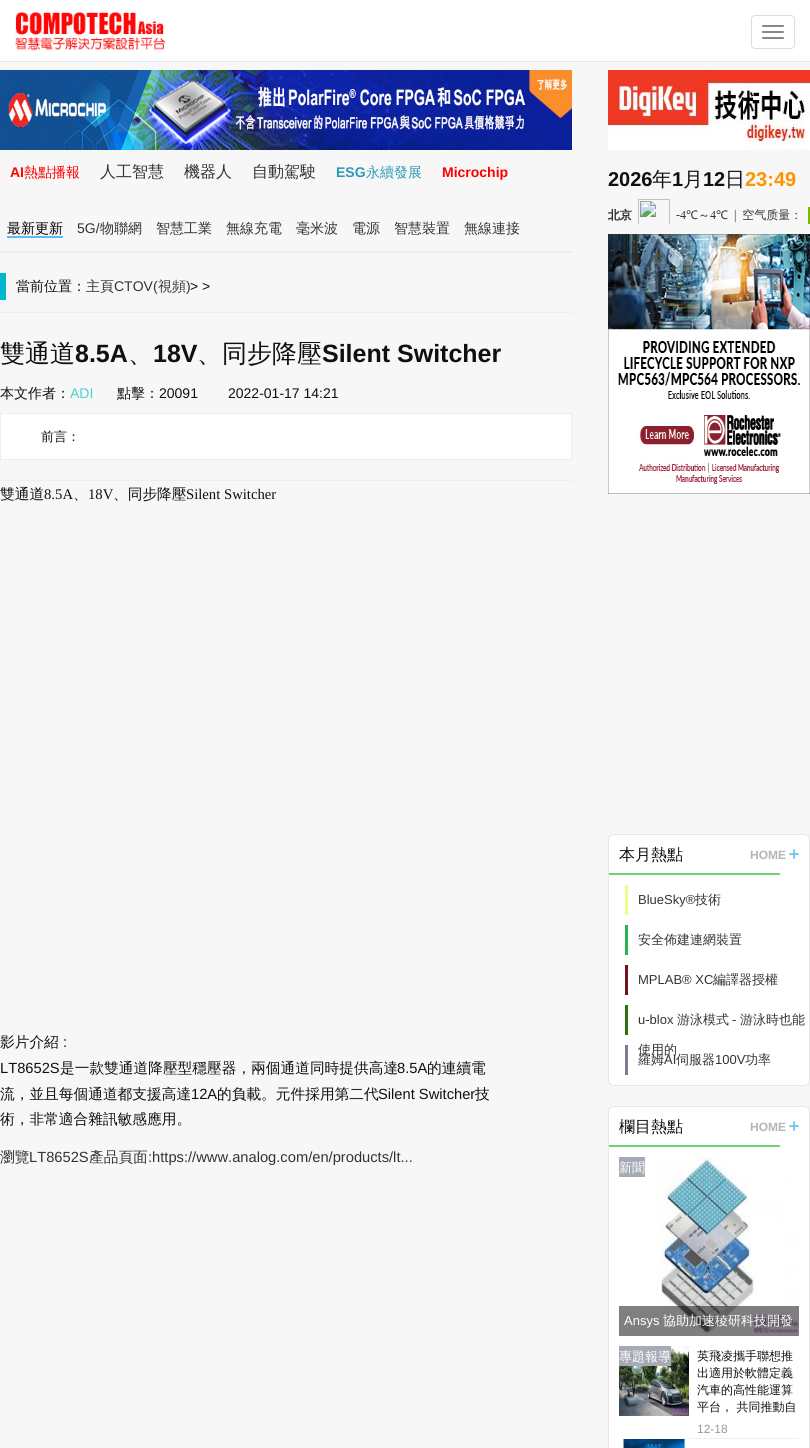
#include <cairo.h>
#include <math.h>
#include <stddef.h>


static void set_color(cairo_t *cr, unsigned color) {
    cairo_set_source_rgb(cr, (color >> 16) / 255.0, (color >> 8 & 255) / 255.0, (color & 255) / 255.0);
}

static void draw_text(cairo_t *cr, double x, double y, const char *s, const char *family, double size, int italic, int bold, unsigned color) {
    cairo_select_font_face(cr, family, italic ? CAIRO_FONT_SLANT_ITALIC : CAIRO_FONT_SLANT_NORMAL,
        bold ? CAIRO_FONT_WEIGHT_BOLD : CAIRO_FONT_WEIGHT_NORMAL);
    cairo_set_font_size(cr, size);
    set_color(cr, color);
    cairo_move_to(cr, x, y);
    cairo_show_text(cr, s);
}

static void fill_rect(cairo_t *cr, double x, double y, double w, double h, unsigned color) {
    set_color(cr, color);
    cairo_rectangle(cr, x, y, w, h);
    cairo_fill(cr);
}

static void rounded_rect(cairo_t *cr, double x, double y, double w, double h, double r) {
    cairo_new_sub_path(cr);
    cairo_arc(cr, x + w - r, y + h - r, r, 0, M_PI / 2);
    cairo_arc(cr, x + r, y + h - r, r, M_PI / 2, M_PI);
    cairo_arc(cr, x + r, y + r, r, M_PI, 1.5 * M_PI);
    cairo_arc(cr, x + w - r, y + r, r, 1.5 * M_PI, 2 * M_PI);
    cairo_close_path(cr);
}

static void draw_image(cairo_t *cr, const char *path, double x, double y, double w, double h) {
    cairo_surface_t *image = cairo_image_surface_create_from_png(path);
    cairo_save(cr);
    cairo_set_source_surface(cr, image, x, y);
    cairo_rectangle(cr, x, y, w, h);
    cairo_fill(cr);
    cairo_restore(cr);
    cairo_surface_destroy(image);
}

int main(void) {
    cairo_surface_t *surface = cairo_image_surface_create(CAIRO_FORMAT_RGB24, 810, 1448);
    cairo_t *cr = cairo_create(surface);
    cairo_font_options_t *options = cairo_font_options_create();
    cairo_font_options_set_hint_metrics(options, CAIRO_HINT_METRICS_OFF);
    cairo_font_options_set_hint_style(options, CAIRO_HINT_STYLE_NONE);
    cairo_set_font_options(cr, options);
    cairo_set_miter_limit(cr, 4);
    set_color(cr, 0xF7F7F7);
    cairo_paint(cr);
    fill_rect(cr, 0, 0, 810, 61, 0xFFFFFF);
    fill_rect(cr, 0, 61, 810, 1, 0xE7E7E7);
    draw_image(cr, "assets/img1.png", 15, 12, 151, 39);
    rounded_rect(cr, 751.5, 15.5, 43, 33, 3.5);
    set_color(cr, 0xDDDDDD);
    cairo_set_line_width(cr, 1);
    cairo_stroke(cr);
    set_color(cr, 0x888888);
    rounded_rect(cr, 762, 25, 22, 2, 1);
    cairo_fill(cr);
    rounded_rect(cr, 762, 31, 22, 2, 1);
    cairo_fill(cr);
    rounded_rect(cr, 762, 37, 22, 2, 1);
    cairo_fill(cr);
    draw_image(cr, "assets/img2.png", 0, 70, 572, 80);
    draw_text(cr, 10, 177, "AI", "Liberation Sans", 14, 0, 1, 0xFF0000);
    draw_text(cr, 24, 177, "熱點播報", "WenQuanYi Zen Hei Medium", 14, 0, 0, 0xFF0000);
    draw_text(cr, 100, 177, "人工智慧", "WenQuanYi Zen Hei Medium", 16, 0, 0, 0x333333);
    draw_text(cr, 184, 177, "機器人", "WenQuanYi Zen Hei Medium", 16, 0, 0, 0x333333);
    draw_text(cr, 252, 177, "自動駕駛", "WenQuanYi Zen Hei Medium", 16, 0, 0, 0x333333);
    draw_text(cr, 336, 177, "ESG", "Liberation Sans", 14, 0, 1, 0x2C9AB7);
    draw_text(cr, 366, 177, "永續發展", "WenQuanYi Zen Hei Medium", 14, 0, 0, 0x2C9AB7);
    draw_text(cr, 442, 177, "Microchip", "Liberation Sans", 14, 0, 1, 0xFF0000);
    fill_rect(cr, 0, 251, 572, 2, 0xEEEEEE);
    draw_text(cr, 7, 233, "最新更新", "WenQuanYi Zen Hei Medium", 14, 0, 0, 0x000000);
    fill_rect(cr, 7, 236, 56, 2, 0x59BDF7);
    draw_text(cr, 77, 233, "5G/", "Liberation Sans", 14, 0, 0, 0x333333);
    draw_text(cr, 100, 233, "物聯網", "WenQuanYi Zen Hei Medium", 14, 0, 0, 0x333333);
    draw_text(cr, 156, 233, "智慧工業", "WenQuanYi Zen Hei Medium", 14, 0, 0, 0x333333);
    draw_text(cr, 226, 233, "無線充電", "WenQuanYi Zen Hei Medium", 14, 0, 0, 0x333333);
    draw_text(cr, 296, 233, "毫米波", "WenQuanYi Zen Hei Medium", 14, 0, 0, 0x333333);
    draw_text(cr, 352, 233, "電源", "WenQuanYi Zen Hei Medium", 14, 0, 0, 0x333333);
    draw_text(cr, 394, 233, "智慧裝置", "WenQuanYi Zen Hei Medium", 14, 0, 0, 0x333333);
    draw_text(cr, 464, 233, "無線連接", "WenQuanYi Zen Hei Medium", 14, 0, 0, 0x333333);
    fill_rect(cr, 0, 312, 572, 1, 0xEEEEEE);
    fill_rect(cr, 0, 273, 6, 27, 0x03B7CF);
    draw_text(cr, 16, 291, "當前位置：", "WenQuanYi Zen Hei Medium", 14, 0, 0, 0x101010);
    draw_text(cr, 86, 291, "主頁", "WenQuanYi Zen Hei Medium", 14, 0, 0, 0x333333);
    draw_text(cr, 114, 291, "CTOV(", "Liberation Sans", 14, 0, 0, 0x333333);
    draw_text(cr, 158, 291, "視頻", "WenQuanYi Zen Hei Medium", 14, 0, 0, 0x333333);
    draw_text(cr, 186, 291, ")", "Liberation Sans", 14, 0, 0, 0x333333);
    draw_text(cr, 190, 291, "> >", "Liberation Sans", 14, 0, 0, 0x101010);
    fill_rect(cr, 0, 480, 572, 1, 0xEEEEEE);
    draw_text(cr, 0, 362, "雙通道", "WenQuanYi Zen Hei Medium", 25, 0, 0, 0x101010);
    draw_text(cr, 75, 362, "8.5A", "Liberation Sans", 25, 0, 1, 0x101010);
    draw_text(cr, 128, 362, "、", "WenQuanYi Zen Hei Medium", 25, 0, 0, 0x101010);
    draw_text(cr, 153, 362, "18V", "Liberation Sans", 25, 0, 1, 0x101010);
    draw_text(cr, 197, 362, "、同步降壓", "WenQuanYi Zen Hei Medium", 25, 0, 0, 0x101010);
    draw_text(cr, 322, 362, "Silent Switcher", "Liberation Sans", 25, 0, 1, 0x101010);
    draw_text(cr, 0, 398, "本文作者：", "WenQuanYi Zen Hei Medium", 14, 0, 0, 0x101010);
    draw_text(cr, 70, 398, "ADI", "Liberation Sans", 14, 0, 0, 0x48D1CC);
    draw_text(cr, 117, 398, "點擊：", "WenQuanYi Zen Hei Medium", 14, 0, 0, 0x101010);
    draw_text(cr, 159, 398, "20091", "Liberation Sans", 14, 0, 0, 0x101010);
    draw_text(cr, 228, 398, "2022-01-17 14:21", "Liberation Sans", 14, 0, 0, 0x101010);
    set_color(cr, 0xFFFFFF);
    cairo_rectangle(cr, 0.5, 413.5, 571, 46);
    cairo_fill_preserve(cr);
    set_color(cr, 0xEEEEEE);
    cairo_stroke(cr);
    draw_text(cr, 41, 441, "前言：", "WenQuanYi Zen Hei Medium", 13, 0, 0, 0x101010);
    draw_text(cr, 0, 499, "雙通道", "WenQuanYi Zen Hei Medium", 14.7, 0, 0, 0x101010);
    draw_text(cr, 44, 499, "8.5A", "Liberation Serif", 14.7, 0, 0, 0x101010);
    draw_text(cr, 73, 499, "、", "WenQuanYi Zen Hei Medium", 14.7, 0, 0, 0x101010);
    draw_text(cr, 88, 499, "18V", "Liberation Serif", 14.7, 0, 0, 0x101010);
    draw_text(cr, 113, 499, "、同步降壓", "WenQuanYi Zen Hei Medium", 14.7, 0, 0, 0x101010);
    draw_text(cr, 186, 499, "Silent Switcher", "Liberation Serif", 14.7, 0, 0, 0x101010);
    draw_text(cr, 0, 1047, "影片介紹", "WenQuanYi Zen Hei Medium", 14.7, 0, 0, 0x101010);
    draw_text(cr, 63, 1047, ":", "Liberation Sans", 14.7, 0, 0, 0x101010);
    draw_text(cr, 0, 1073, "LT8652S", "Liberation Sans", 14.7, 0, 0, 0x101010);
    draw_text(cr, 60, 1073, "是一款雙通道降壓型穩壓器，兩個通道同時提供高達", "WenQuanYi Zen Hei Medium", 14.7, 0, 0, 0x101010);
    draw_text(cr, 397, 1073, "8.5A", "Liberation Sans", 14.7, 0, 0, 0x101010);
    draw_text(cr, 427, 1073, "的連續電", "WenQuanYi Zen Hei Medium", 14.7, 0, 0, 0x101010);
    draw_text(cr, 0, 1099, "流，並且每個通道都支援高達", "WenQuanYi Zen Hei Medium", 14.7, 0, 0, 0x101010);
    draw_text(cr, 191, 1099, "12A", "Liberation Sans", 14.7, 0, 0, 0x101010);
    draw_text(cr, 217, 1099, "的負載。元件採用第二代", "WenQuanYi Zen Hei Medium", 14.7, 0, 0, 0x101010);
    draw_text(cr, 378, 1099, "Silent Switcher", "Liberation Sans", 14.7, 0, 0, 0x101010);
    draw_text(cr, 475, 1099, "技", "WenQuanYi Zen Hei Medium", 14.7, 0, 0, 0x101010);
    draw_text(cr, 0, 1124, "術，非常適合雜訊敏感應用。", "WenQuanYi Zen Hei Medium", 14.7, 0, 0, 0x101010);
    draw_text(cr, 0, 1162, "瀏覽", "WenQuanYi Zen Hei Medium", 14.7, 0, 0, 0x333333);
    draw_text(cr, 29, 1162, "LT8652S", "Liberation Sans", 14.7, 0, 0, 0x333333);
    draw_text(cr, 89, 1162, "產品頁面", "WenQuanYi Zen Hei Medium", 14.7, 0, 0, 0x333333);
    draw_text(cr, 148, 1162, ":https://www.analog.com/en/products/lt...", "Liberation Sans", 14.7, 0, 0, 0x333333);
    draw_image(cr, "assets/img3.png", 608, 70, 202, 80);
    draw_text(cr, 608, 186, "2026", "Liberation Sans", 20, 0, 1, 0x101010);
    draw_text(cr, 652, 186, "年", "WenQuanYi Zen Hei Medium", 20, 0, 0, 0x101010);
    draw_text(cr, 672, 186, "1", "Liberation Sans", 20, 0, 1, 0x101010);
    draw_text(cr, 683, 186, "月", "WenQuanYi Zen Hei Medium", 20, 0, 0, 0x101010);
    draw_text(cr, 703, 186, "12", "Liberation Sans", 20, 0, 1, 0x101010);
    draw_text(cr, 725, 186, "日", "WenQuanYi Zen Hei Medium", 20, 0, 0, 0x101010);
    draw_text(cr, 745, 186, "23:49", "Liberation Sans", 20, 0, 1, 0xFF9400);
    draw_image(cr, "assets/img4.png", 608, 199, 202, 25);
    draw_image(cr, "assets/img5.png", 608, 234, 202, 260);
    set_color(cr, 0xFFFFFF);
    rounded_rect(cr, 608.5, 834.5, 201, 251, 5.5);
    cairo_fill_preserve(cr);
    set_color(cr, 0xE6E6E6);
    cairo_stroke(cr);
    draw_image(cr, "assets/img6.png", 609, 873, 171, 2);
    draw_text(cr, 619, 860, "本月熱點", "WenQuanYi Zen Hei Medium", 16, 0, 0, 0x101010);
    draw_text(cr, 750, 859, "HOME", "Liberation Sans", 12, 0, 1, 0xB5B5B5);
    draw_image(cr, "assets/img7.png", 789, 849, 10, 10);
    fill_rect(cr, 625, 885, 3, 30, 0xE8FE93);
    draw_text(cr, 638, 904, "BlueSky®", "Liberation Sans", 13, 0, 0, 0x333333);
    draw_text(cr, 695, 904, "技術", "WenQuanYi Zen Hei Medium", 13, 0, 0, 0x333333);
    fill_rect(cr, 625, 925, 3, 30, 0x29B255);
    draw_text(cr, 638, 944, "安全佈建連網裝置", "WenQuanYi Zen Hei Medium", 13, 0, 0, 0x333333);
    fill_rect(cr, 625, 965, 3, 30, 0x741320);
    draw_text(cr, 638, 984, "MPLAB® XC", "Liberation Sans", 13, 0, 0, 0x333333);
    draw_text(cr, 713, 984, "編譯器授權", "WenQuanYi Zen Hei Medium", 13, 0, 0, 0x333333);
    fill_rect(cr, 625, 1005, 3, 30, 0x2C7109);
    draw_text(cr, 638, 1024, "u-blox", "Liberation Sans", 13, 0, 0, 0x333333);
    draw_text(cr, 677, 1024, "游泳模式", "WenQuanYi Zen Hei Medium", 13, 0, 0, 0x333333);
    draw_text(cr, 732, 1024, "-", "Liberation Sans", 13, 0, 0, 0x333333);
    draw_text(cr, 740, 1024, "游泳時也能", "WenQuanYi Zen Hei Medium", 13, 0, 0, 0x333333);
    draw_text(cr, 638, 1054, "使用的", "WenQuanYi Zen Hei Medium", 13, 0, 0, 0x333333);
    fill_rect(cr, 625, 1045, 3, 30, 0x817794);
    draw_text(cr, 638, 1064, "羅姆", "WenQuanYi Zen Hei Medium", 13, 0, 0, 0x333333);
    draw_text(cr, 664, 1064, "AI", "Liberation Sans", 13, 0, 0, 0x333333);
    draw_text(cr, 676, 1064, "伺服器", "WenQuanYi Zen Hei Medium", 13, 0, 0, 0x333333);
    draw_text(cr, 715, 1064, "100V", "Liberation Sans", 13, 0, 0, 0x333333);
    draw_text(cr, 745, 1064, "功率", "WenQuanYi Zen Hei Medium", 13, 0, 0, 0x333333);
    set_color(cr, 0xFFFFFF);
    rounded_rect(cr, 608.5, 1106.5, 201, 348, 5.5);
    cairo_fill_preserve(cr);
    set_color(cr, 0xE6E6E6);
    cairo_stroke(cr);
    draw_image(cr, "assets/img6.png", 609, 1145, 171, 2);
    draw_text(cr, 619, 1132, "欄目熱點", "WenQuanYi Zen Hei Medium", 16, 0, 0, 0x101010);
    draw_text(cr, 750, 1131, "HOME", "Liberation Sans", 12, 0, 1, 0xB5B5B5);
    draw_image(cr, "assets/img7.png", 789, 1121, 10, 10);
    fill_rect(cr, 619, 1157, 26, 20, 0xA4ABB5);
    draw_text(cr, 619, 1172, "新聞", "WenQuanYi Zen Hei Medium", 13, 0, 0, 0xFFFFFF);
    draw_image(cr, "assets/img8.png", 655, 1157, 144, 179);
    cairo_set_source_rgba(cr, 0, 0, 0, 0.5);
    cairo_rectangle(cr, 619, 1306, 180, 30);
    cairo_fill(cr);
    draw_text(cr, 624, 1325, "Ansys", "Liberation Sans", 13, 0, 0, 0xFFFFFF);
    draw_text(cr, 663, 1325, "協助加速稜研科技開發", "WenQuanYi Zen Hei Medium", 13, 0, 0, 0xFFFFFF);
    draw_image(cr, "assets/img9.png", 619, 1346, 70, 70);
    fill_rect(cr, 619, 1346, 52, 20, 0xA4ABB5);
    draw_text(cr, 619, 1361, "專題報導", "WenQuanYi Zen Hei Medium", 13, 0, 0, 0xFFFFFF);
    fill_rect(cr, 689, 1438, 110, 1, 0xEEEEEE);
    draw_text(cr, 697, 1360, "英飛凌攜手聯想推", "WenQuanYi Zen Hei Medium", 12, 0, 0, 0x101010);
    draw_text(cr, 697, 1377, "出適用於軟體定義", "WenQuanYi Zen Hei Medium", 12, 0, 0, 0x101010);
    draw_text(cr, 697, 1394, "汽車的高性能運算", "WenQuanYi Zen Hei Medium", 12, 0, 0, 0x101010);
    draw_text(cr, 697, 1411, "平台， 共同推動自", "WenQuanYi Zen Hei Medium", 12, 0, 0, 0x101010);
    draw_text(cr, 697, 1433, "12-18", "Liberation Sans", 12, 0, 0, 0x999999);
    draw_image(cr, "assets/img10.png", 621, 1439, 67, 9);
    cairo_surface_write_to_png(surface, "output.png");
    cairo_font_options_destroy(options);
    cairo_destroy(cr);
    cairo_surface_destroy(surface);
    return 0;
}
